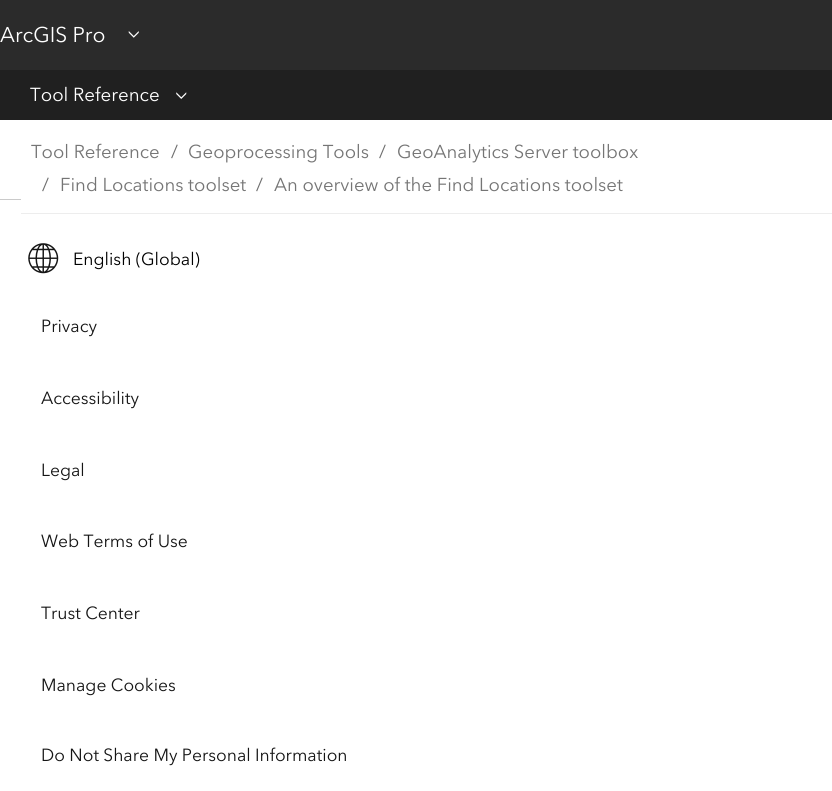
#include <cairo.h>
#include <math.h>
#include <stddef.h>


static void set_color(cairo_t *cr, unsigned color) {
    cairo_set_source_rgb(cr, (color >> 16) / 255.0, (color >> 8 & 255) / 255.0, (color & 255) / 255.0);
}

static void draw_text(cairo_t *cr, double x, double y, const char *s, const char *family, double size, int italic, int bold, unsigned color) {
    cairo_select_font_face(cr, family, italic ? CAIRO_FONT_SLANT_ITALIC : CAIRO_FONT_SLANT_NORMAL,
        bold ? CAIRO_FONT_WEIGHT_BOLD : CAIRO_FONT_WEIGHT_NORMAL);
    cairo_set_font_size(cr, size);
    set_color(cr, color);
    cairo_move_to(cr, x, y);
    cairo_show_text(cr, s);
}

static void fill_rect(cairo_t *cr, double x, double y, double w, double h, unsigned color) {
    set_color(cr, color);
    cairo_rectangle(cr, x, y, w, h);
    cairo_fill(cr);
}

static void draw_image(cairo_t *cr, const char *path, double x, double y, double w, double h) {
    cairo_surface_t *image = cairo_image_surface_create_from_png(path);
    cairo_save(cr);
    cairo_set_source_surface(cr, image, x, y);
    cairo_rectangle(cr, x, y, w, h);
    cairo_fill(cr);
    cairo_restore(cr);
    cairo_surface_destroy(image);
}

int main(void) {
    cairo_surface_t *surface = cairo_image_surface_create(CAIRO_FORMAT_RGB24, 832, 791);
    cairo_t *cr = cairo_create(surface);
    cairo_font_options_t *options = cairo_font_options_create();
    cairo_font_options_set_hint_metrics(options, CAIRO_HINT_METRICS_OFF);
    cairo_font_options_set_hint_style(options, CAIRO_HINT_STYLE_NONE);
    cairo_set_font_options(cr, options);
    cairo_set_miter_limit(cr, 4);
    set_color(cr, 0xFFFFFF);
    cairo_paint(cr);
    fill_rect(cr, 0, 0, 832, 70, 0x2B2B2B);
    draw_text(cr, 0, 42, "ArcGIS Pro", "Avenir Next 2", 21.25, 0, 0, 0xFFFFFF);
    draw_image(cr, "assets/img1.png", 128, 31, 11, 7);
    fill_rect(cr, 0, 70, 832, 50, 0x202020);
    draw_text(cr, 30, 101, "Tool Reference", "Avenir Next 2", 18.75, 0, 0, 0xFFFFFF);
    draw_image(cr, "assets/img2.png", 176, 92, 11, 7);
    fill_rect(cr, 21, 213, 811, 1, 0xEDEDED);
    draw_text(cr, 31, 158, "Tool Reference", "Avenir Next 2", 18.6, 0, 0, 0x757575);
    draw_text(cr, 171, 158, "/", "Avenir Next 2", 18.6, 0, 0, 0x6E6E6E);
    draw_text(cr, 188, 158, "Geoprocessing Tools", "Avenir Next 2", 18.6, 0, 0, 0x757575);
    draw_text(cr, 379, 158, "/", "Avenir Next 2", 18.6, 0, 0, 0x6E6E6E);
    draw_text(cr, 397, 158, "GeoAnalytics Server toolbox", "Avenir Next 2", 18.6, 0, 0, 0x757575);
    draw_text(cr, 42, 191, "/", "Avenir Next 2", 18.6, 0, 0, 0x6E6E6E);
    draw_text(cr, 60, 191, "Find Locations toolset", "Avenir Next 2", 18.6, 0, 0, 0x757575);
    draw_text(cr, 256, 191, "/", "Avenir Next 2", 18.6, 0, 0, 0x6E6E6E);
    draw_text(cr, 274, 191, "An overview of the Find Locations toolset", "Avenir Next 2", 18.6, 0, 0, 0x757575);
    fill_rect(cr, 0, 199, 21, 1, 0xCACACA);
    draw_image(cr, "assets/img3.png", 28, 243, 31, 31);
    draw_text(cr, 73, 265, "English (Global)", "Avenir Next", 17.5, 0, 0, 0x000000);
    draw_text(cr, 41, 332, "Privacy", "Avenir Next", 17.5, 0, 0, 0x151515);
    draw_text(cr, 41, 404, "Accessibility", "Avenir Next", 17.5, 0, 0, 0x151515);
    draw_text(cr, 41, 476, "Legal", "Avenir Next", 17.5, 0, 0, 0x151515);
    draw_text(cr, 41, 547, "Web Terms of Use", "Avenir Next", 17.5, 0, 0, 0x151515);
    draw_text(cr, 41, 619, "Trust Center", "Avenir Next", 17.5, 0, 0, 0x151515);
    draw_text(cr, 41, 691, "Manage Cookies", "Avenir Next", 17.5, 0, 0, 0x151515);
    draw_text(cr, 41, 761, "Do Not Share My Personal Information", "Avenir Next", 17.5, 0, 0, 0x151515);
    cairo_surface_write_to_png(surface, "output.png");
    cairo_font_options_destroy(options);
    cairo_destroy(cr);
    cairo_surface_destroy(surface);
    return 0;
}
